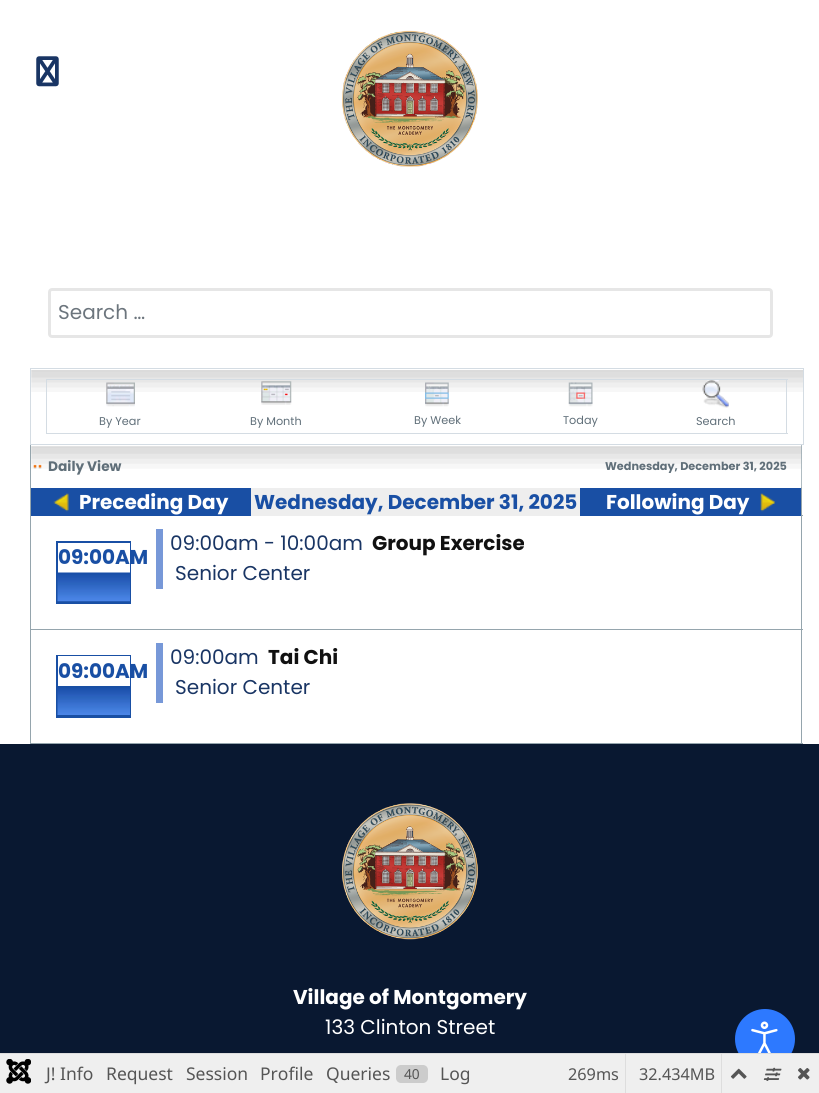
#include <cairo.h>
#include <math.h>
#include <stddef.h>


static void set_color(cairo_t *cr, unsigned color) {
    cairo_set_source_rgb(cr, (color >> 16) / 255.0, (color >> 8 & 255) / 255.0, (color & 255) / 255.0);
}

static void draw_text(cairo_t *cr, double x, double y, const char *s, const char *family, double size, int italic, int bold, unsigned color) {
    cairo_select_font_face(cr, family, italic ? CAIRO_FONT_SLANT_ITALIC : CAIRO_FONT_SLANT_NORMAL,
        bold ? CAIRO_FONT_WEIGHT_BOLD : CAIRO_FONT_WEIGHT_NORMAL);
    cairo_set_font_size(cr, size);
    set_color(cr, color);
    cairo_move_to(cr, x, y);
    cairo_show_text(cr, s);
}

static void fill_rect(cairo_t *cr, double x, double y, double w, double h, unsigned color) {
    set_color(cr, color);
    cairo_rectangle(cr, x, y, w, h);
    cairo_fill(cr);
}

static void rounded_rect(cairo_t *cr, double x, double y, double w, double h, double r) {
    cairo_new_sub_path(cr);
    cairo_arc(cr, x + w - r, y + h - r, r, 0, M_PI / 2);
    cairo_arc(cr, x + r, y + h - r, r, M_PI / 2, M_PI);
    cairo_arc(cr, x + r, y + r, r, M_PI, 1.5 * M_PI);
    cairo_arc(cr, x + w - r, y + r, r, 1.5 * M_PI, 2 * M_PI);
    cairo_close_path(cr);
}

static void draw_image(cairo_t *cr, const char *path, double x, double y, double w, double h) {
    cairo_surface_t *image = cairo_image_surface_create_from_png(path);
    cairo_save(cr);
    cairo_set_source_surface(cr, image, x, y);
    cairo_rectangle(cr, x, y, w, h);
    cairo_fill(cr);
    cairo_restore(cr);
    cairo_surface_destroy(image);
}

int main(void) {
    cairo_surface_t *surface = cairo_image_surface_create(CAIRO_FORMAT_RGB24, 819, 1093);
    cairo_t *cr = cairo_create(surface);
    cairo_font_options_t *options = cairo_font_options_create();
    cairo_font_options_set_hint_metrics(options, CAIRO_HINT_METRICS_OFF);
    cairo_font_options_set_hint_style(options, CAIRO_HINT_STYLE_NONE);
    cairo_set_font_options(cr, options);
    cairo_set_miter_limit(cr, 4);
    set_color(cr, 0xFFFFFF);
    cairo_paint(cr);
    draw_image(cr, "assets/img1.png", 36, 56, 23, 31);
    draw_image(cr, "assets/img2.png", 342, 30, 136, 137);
    rounded_rect(cr, 49.5, 289.5, 722, 47, 2.5);
    set_color(cr, 0xE6E6E6);
    cairo_set_line_width(cr, 3);
    cairo_stroke(cr);
    draw_text(cr, 58, 319, "Search …", "Poppins", 20, 0, 0, 0x6C757D);
    fill_rect(cr, 30, 368, 774, 1, 0xD4DCE3);
    fill_rect(cr, 803, 368, 1, 77, 0xD4DCE3);
    fill_rect(cr, 30, 444, 774, 1, 0xD4DCE3);
    fill_rect(cr, 30, 368, 1, 77, 0xD4DCE3);
    draw_image(cr, "assets/img3.png", 31, 370, 772, 22);
    fill_rect(cr, 46, 379, 742, 1, 0xD4DCE3);
    fill_rect(cr, 786, 379, 1, 55, 0xD4DCE3);
    fill_rect(cr, 46, 433, 742, 1, 0xD4DCE3);
    fill_rect(cr, 46, 379, 1, 55, 0xD4DCE3);
    draw_image(cr, "assets/img4.png", 106, 382, 29, 25);
    draw_text(cr, 99, 425, "By Year", "Poppins", 11.25, 0, 0, 0x606F79);
    draw_image(cr, "assets/img5.png", 261, 381, 31, 24);
    draw_text(cr, 250, 425, "By Month", "Poppins", 11.25, 0, 0, 0x606F79);
    draw_image(cr, "assets/img6.png", 425, 382, 24, 25);
    draw_text(cr, 414, 424, "By Week", "Poppins", 11.25, 0, 0, 0x606F79);
    draw_image(cr, "assets/img7.png", 568, 382, 25, 25);
    draw_text(cr, 563, 424, "Today", "Poppins", 11.25, 0, 0, 0x606F79);
    draw_image(cr, "assets/img8.png", 702, 380, 27, 28);
    draw_text(cr, 696, 425, "Search", "Poppins", 11.25, 0, 0, 0x606F79);
    fill_rect(cr, 801, 445, 1, 299, 0x95A5AD);
    fill_rect(cr, 801, 515, 2, 1, 0x95A5AD);
    fill_rect(cr, 30, 445, 1, 71, 0x95A5AD);
    draw_image(cr, "assets/img9.png", 31, 445, 771, 43);
    draw_image(cr, "assets/img10.png", 33, 464, 9, 5);
    draw_text(cr, 48, 471, "Daily View", "Poppins", 13.75, 0, 1, 0x606F79);
    draw_text(cr, 605, 470, "Wednesday, December 31, 2025", "Poppins", 11.25, 0, 1, 0x606F79);
    fill_rect(cr, 31, 488, 770, 28, 0x194FA4);
    draw_image(cr, "assets/img11.png", 53, 493, 16, 19);
    draw_text(cr, 79, 509, "Preceding Day", "Poppins", 20, 0, 1, 0xFFFFFF);
    fill_rect(cr, 251, 488, 329, 28, 0xEEEEEE);
    draw_text(cr, 254, 509, "Wednesday, December 31, 2025", "Poppins", 20, 0, 1, 0x194FA4);
    draw_text(cr, 606, 509, "Following Day", "Poppins", 20, 0, 1, 0xFFFFFF);
    draw_image(cr, "assets/img12.png", 760, 493, 15, 19);
    fill_rect(cr, 30, 629, 773, 1, 0x95A5AD);
    fill_rect(cr, 30, 516, 1, 114, 0x95A5AD);
    fill_rect(cr, 56, 541, 75, 63, 0x194FA4);
    fill_rect(cr, 58, 543, 72, 30, 0xFFFFFF);
    draw_text(cr, 58, 564, "09:00AM", "Poppins", 20, 0, 1, 0x194FA4);
    draw_image(cr, "assets/img13.png", 57, 572, 73, 30);
    fill_rect(cr, 156, 529, 7, 60, 0x7798D8);
    draw_text(cr, 170, 550, "09:00am - 10:00am", "Poppins", 20, 0, 0, 0x193564);
    draw_text(cr, 372, 550, "Group Exercise", "Poppins", 20, 0, 1, 0x111111);
    draw_text(cr, 175, 580, "Senior Center", "Poppins", 20, 0, 0, 0x193564);
    fill_rect(cr, 30, 743, 773, 1, 0x95A5AD);
    fill_rect(cr, 30, 630, 1, 114, 0x95A5AD);
    fill_rect(cr, 56, 655, 75, 63, 0x194FA4);
    fill_rect(cr, 58, 656, 72, 30, 0xFFFFFF);
    draw_text(cr, 58, 678, "09:00AM", "Poppins", 20, 0, 1, 0x194FA4);
    draw_image(cr, "assets/img14.png", 57, 688, 73, 27);
    fill_rect(cr, 156, 643, 7, 60, 0x7798D8);
    draw_text(cr, 170, 664, "09:00am", "Poppins", 20, 0, 0, 0x193564);
    draw_text(cr, 268, 664, "Tai Chi", "Poppins", 20, 0, 1, 0x111111);
    draw_text(cr, 175, 694, "Senior Center", "Poppins", 20, 0, 0, 0x193564);
    fill_rect(cr, 0, 744, 819, 309, 0x091831);
    draw_image(cr, "assets/img15.png", 342, 803, 136, 137);
    draw_text(cr, 293, 1004, "Village of Montgomery", "Poppins", 20, 0, 1, 0xFFFFFF);
    draw_text(cr, 325, 1034, "133 Clinton Street", "Poppins", 20, 0, 0, 0xFFFFFF);
    set_color(cr, 0x2D79FF);
    cairo_new_path(cr);
    cairo_arc(cr, 765, 1039, 30, 0, 2 * M_PI);
    cairo_fill(cr);
    draw_image(cr, "assets/img16.png", 751, 1021, 27, 32);
    fill_rect(cr, 0, 1053, 819, 1, 0xDDDDDD);
    fill_rect(cr, 0, 1054, 819, 39, 0xEFEFEF);
    draw_image(cr, "assets/img17.png", 6, 1059, 25, 25);
    draw_text(cr, 46, 1080, "J! Info", "Noto Sans", 17.5, 0, 0, 0x555555);
    draw_text(cr, 106, 1080, "Request", "Noto Sans", 17.5, 0, 0, 0x555555);
    draw_text(cr, 186, 1080, "Session", "Noto Sans", 17.5, 0, 0, 0x555555);
    draw_text(cr, 260, 1080, "Profile", "Noto Sans", 17.5, 0, 0, 0x555555);
    draw_text(cr, 326, 1080, "Queries", "Noto Sans", 17.5, 0, 0, 0x555555);
    set_color(cr, 0xCCCCCC);
    rounded_rect(cr, 396, 1065, 32, 18, 5);
    cairo_fill(cr);
    draw_text(cr, 404, 1079, "40", "Noto Sans", 13.75, 0, 0, 0x555555);
    draw_text(cr, 440, 1080, "Log", "Noto Sans", 17.5, 0, 0, 0x555555);
    fill_rect(cr, 625, 1054, 1, 39, 0xDDDDDD);
    draw_text(cr, 568, 1080, "269ms", "Noto Sans", 16.25, 0, 0, 0x555555);
    fill_rect(cr, 721, 1054, 1, 39, 0xDDDDDD);
    draw_text(cr, 639, 1080, "32.434MB", "Noto Sans", 16.25, 0, 0, 0x555555);
    draw_image(cr, "assets/img18.png", 730, 1068, 17, 11);
    draw_image(cr, "assets/img19.png", 763, 1067, 19, 14);
    draw_image(cr, "assets/img20.png", 798, 1068, 12, 12);
    cairo_surface_write_to_png(surface, "output.png");
    cairo_font_options_destroy(options);
    cairo_destroy(cr);
    cairo_surface_destroy(surface);
    return 0;
}
